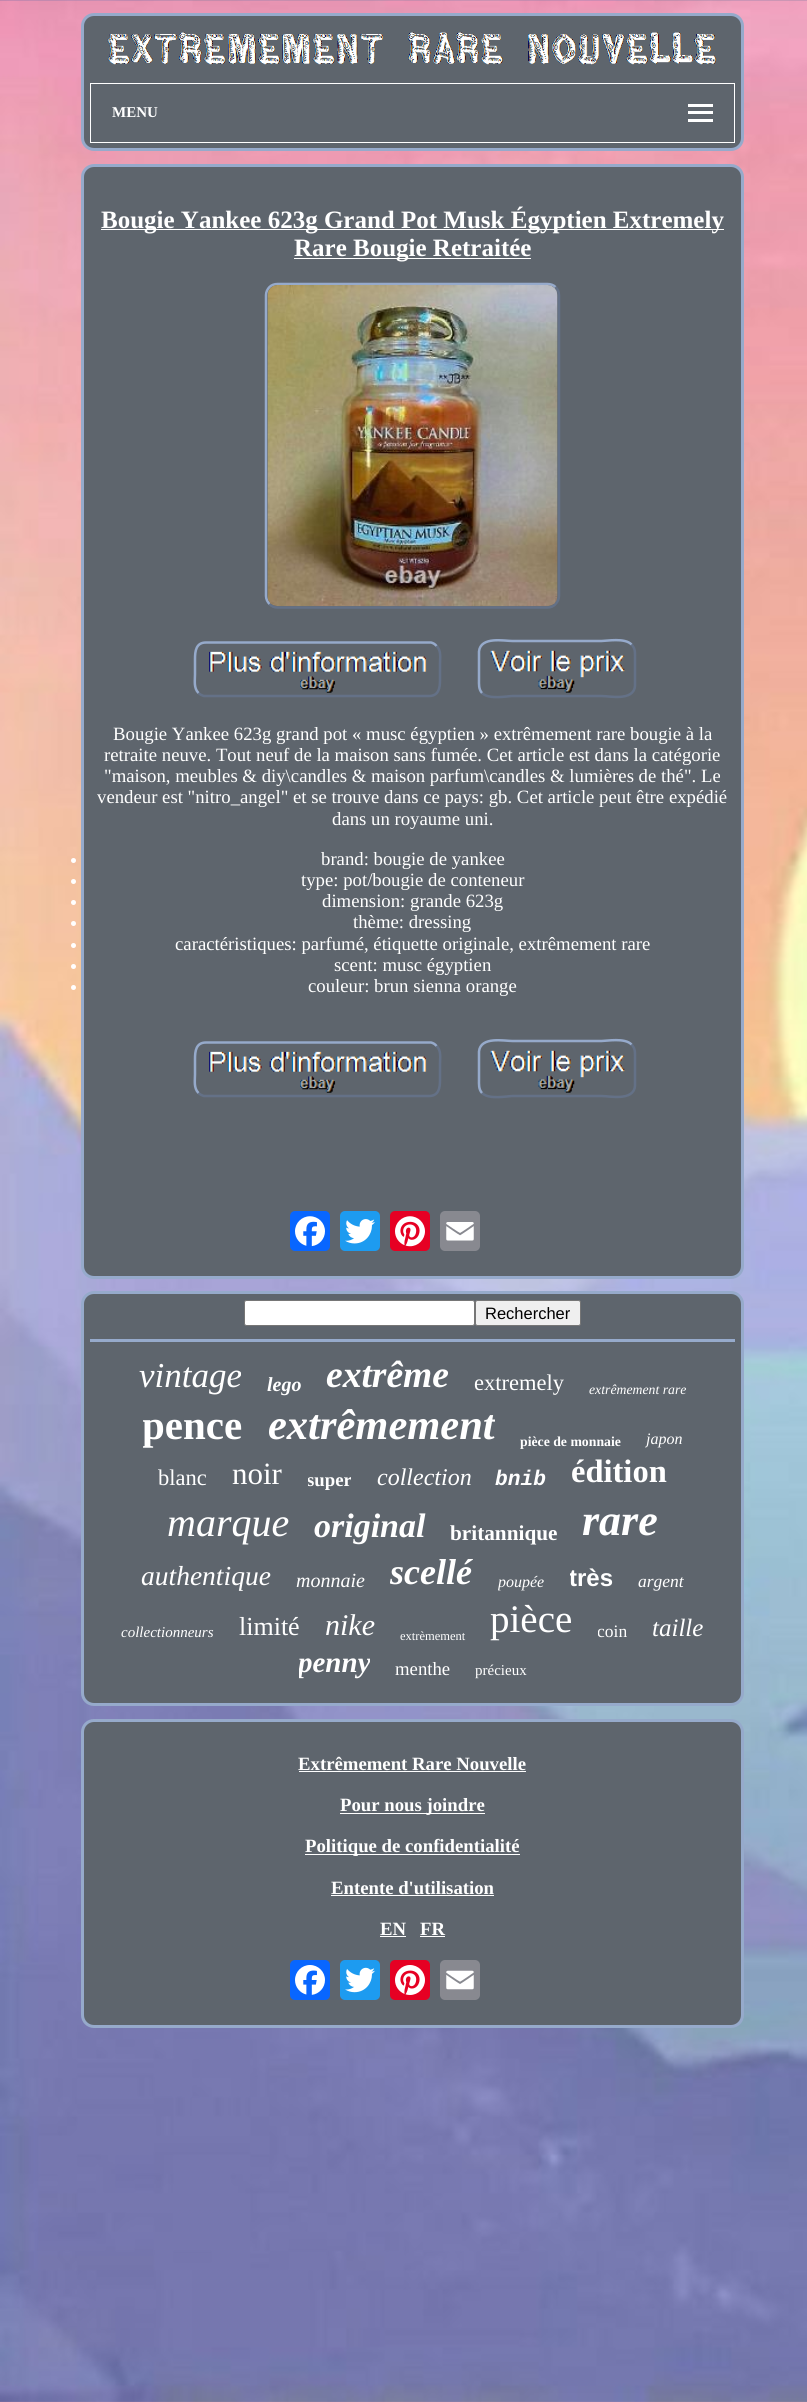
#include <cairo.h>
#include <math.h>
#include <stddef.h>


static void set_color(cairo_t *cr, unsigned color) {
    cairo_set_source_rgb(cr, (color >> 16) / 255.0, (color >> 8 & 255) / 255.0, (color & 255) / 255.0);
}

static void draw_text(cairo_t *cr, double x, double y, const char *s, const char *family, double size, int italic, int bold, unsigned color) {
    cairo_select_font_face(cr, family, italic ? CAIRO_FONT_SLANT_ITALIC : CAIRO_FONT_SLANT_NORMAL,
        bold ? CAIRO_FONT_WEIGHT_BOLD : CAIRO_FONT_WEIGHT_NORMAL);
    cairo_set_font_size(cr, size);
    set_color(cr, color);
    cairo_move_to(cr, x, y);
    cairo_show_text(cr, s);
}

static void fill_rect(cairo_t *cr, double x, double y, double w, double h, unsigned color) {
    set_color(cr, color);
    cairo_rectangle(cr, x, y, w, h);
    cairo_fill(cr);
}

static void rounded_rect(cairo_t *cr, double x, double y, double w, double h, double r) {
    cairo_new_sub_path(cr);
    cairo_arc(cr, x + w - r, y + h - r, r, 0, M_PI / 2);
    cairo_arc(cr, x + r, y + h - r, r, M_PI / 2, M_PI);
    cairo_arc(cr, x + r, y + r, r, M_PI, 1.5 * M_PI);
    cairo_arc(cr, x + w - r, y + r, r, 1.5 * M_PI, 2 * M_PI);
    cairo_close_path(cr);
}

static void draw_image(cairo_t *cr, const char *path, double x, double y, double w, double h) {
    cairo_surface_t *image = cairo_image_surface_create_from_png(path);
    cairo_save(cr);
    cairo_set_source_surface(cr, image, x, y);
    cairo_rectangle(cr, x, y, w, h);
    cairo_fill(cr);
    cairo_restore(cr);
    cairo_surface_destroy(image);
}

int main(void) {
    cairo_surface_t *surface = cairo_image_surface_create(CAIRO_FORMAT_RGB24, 807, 2402);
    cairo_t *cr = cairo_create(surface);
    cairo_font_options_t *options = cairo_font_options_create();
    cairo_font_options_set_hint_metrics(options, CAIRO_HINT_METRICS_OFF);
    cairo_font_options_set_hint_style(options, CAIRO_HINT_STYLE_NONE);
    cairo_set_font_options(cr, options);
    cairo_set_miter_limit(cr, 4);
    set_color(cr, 0xFFFFFF);
    cairo_paint(cr);
    draw_image(cr, "assets/img1.png", 0, 0, 807, 2402);
    set_color(cr, 0x5E656D);
    rounded_rect(cr, 82.5, 14.5, 660, 135, 11.5);
    cairo_fill_preserve(cr);
    set_color(cr, 0x96AACB);
    cairo_set_line_width(cr, 3);
    cairo_stroke(cr);
    draw_image(cr, "assets/img2.png", 107, 32, 609, 33);
    cairo_rectangle(cr, 90.5, 83.5, 644, 59);
    set_color(cr, 0xFFFFFF);
    cairo_set_line_width(cr, 1);
    cairo_stroke(cr);
    fill_rect(cr, 688, 104, 25, 3, 0xFFFFFF);
    draw_text(cr, 112, 117, "MENU", "Liberation Serif", 15, 0, 1, 0xFFFFFF);
    fill_rect(cr, 688, 111, 25, 3, 0xFFFFFF);
    fill_rect(cr, 688, 119, 25, 3, 0xFFFFFF);
    set_color(cr, 0x5E656D);
    rounded_rect(cr, 82.5, 165.5, 660, 1112, 11.5);
    cairo_fill_preserve(cr);
    set_color(cr, 0x96AACB);
    cairo_set_line_width(cr, 3);
    cairo_stroke(cr);
    fill_rect(cr, 101, 229, 623, 1, 0xFFFFFF);
    draw_text(cr, 101, 228, "Bougie Yankee 623g Grand Pot Musk Égyptien Extremely", "Liberation Serif", 25, 0, 1, 0xFFFFFF);
    fill_rect(cr, 294, 258, 237, 1, 0xFFFFFF);
    draw_text(cr, 294, 256, "Rare Bougie Retraitée", "Liberation Serif", 25, 0, 1, 0xFFFFFF);
    cairo_new_path(cr);
    cairo_move_to(cr, 555.5, 287);
    cairo_curve_to(cr, 557.5, 289, 559, 292, 559, 295);
    cairo_line_to(cr, 559, 596);
    cairo_curve_to(cr, 559, 599, 557.5, 602, 555.5, 604);
    cairo_curve_to(cr, 553.5, 606.5, 550.5, 607.5, 547.5, 607.5);
    cairo_line_to(cr, 277.5, 607.5);
    cairo_curve_to(cr, 274.5, 607.5, 271.5, 606.5, 269.5, 604);
    set_color(cr, 0x647187);
    cairo_set_line_width(cr, 2.5);
    cairo_stroke(cr);
    cairo_new_path(cr);
    cairo_move_to(cr, 269.5, 604);
    cairo_curve_to(cr, 267.5, 602, 266, 599, 266, 596);
    cairo_line_to(cr, 266, 295);
    cairo_curve_to(cr, 266, 292, 267.5, 289, 269.5, 287);
    cairo_curve_to(cr, 271.5, 285, 274.5, 284, 277.5, 284);
    cairo_line_to(cr, 547.5, 284);
    cairo_curve_to(cr, 550.5, 284, 553.5, 285, 555.5, 287);
    set_color(cr, 0x96AACB);
    cairo_stroke(cr);
    draw_image(cr, "assets/img3.png", 267, 285, 291, 322);
    cairo_new_path(cr);
    cairo_move_to(cr, 436.5, 646);
    cairo_curve_to(cr, 441.5, 650.5, 440, 658, 440, 664);
    cairo_line_to(cr, 440, 680);
    cairo_curve_to(cr, 440, 687.5, 439, 696, 429, 696);
    cairo_line_to(cr, 204, 696);
    cairo_curve_to(cr, 202, 695.5, 200, 694.5, 198.5, 693);
    set_color(cr, 0x647187);
    cairo_stroke(cr);
    cairo_new_path(cr);
    cairo_move_to(cr, 198.5, 693);
    cairo_curve_to(cr, 193.5, 688, 195, 680.5, 195, 674.5);
    cairo_line_to(cr, 195, 659);
    cairo_curve_to(cr, 195, 651, 196, 642.5, 206, 642.5);
    cairo_line_to(cr, 431, 642.5);
    cairo_curve_to(cr, 433, 643, 435, 644, 436.5, 646);
    set_color(cr, 0x96AACB);
    cairo_stroke(cr);
    draw_image(cr, "assets/img4.png", 209, 651, 218, 42);
    cairo_new_path(cr);
    cairo_move_to(cr, 631.5, 644.5);
    cairo_curve_to(cr, 635.5, 648.5, 635, 653, 635, 658);
    cairo_line_to(cr, 635, 686);
    cairo_curve_to(cr, 633.5, 701.5, 609.5, 696, 601.5, 696);
    cairo_line_to(cr, 512.5, 696);
    cairo_curve_to(cr, 507.5, 696, 489, 700, 482, 693);
    set_color(cr, 0x647187);
    cairo_stroke(cr);
    cairo_new_path(cr);
    cairo_move_to(cr, 482, 693);
    cairo_curve_to(cr, 478.5, 689, 479, 684.5, 479, 679.5);
    cairo_line_to(cr, 479, 651.5);
    cairo_curve_to(cr, 480.5, 636, 504.5, 641, 512.5, 641);
    cairo_line_to(cr, 601.5, 641);
    cairo_curve_to(cr, 606.5, 641, 625, 637.5, 631.5, 644.5);
    set_color(cr, 0x96AACB);
    cairo_stroke(cr);
    draw_image(cr, "assets/img5.png", 490, 650, 135, 43);
    draw_text(cr, 113, 740, "Bougie Yankee 623g grand pot « musc égyptien » extrêmement rare bougie à la", "Liberation Serif", 18.75, 0, 0, 0xFFFFFF);
    draw_text(cr, 104, 761, "retraite neuve. Tout neuf de la maison sans fumée. Cet article est dans la catégorie", "Liberation Serif", 18.75, 0, 0, 0xFFFFFF);
    draw_text(cr, 104, 782, "\"maison, meubles & diy\\candles & maison parfum\\candles & lumières de thé\". Le", "Liberation Serif", 18.75, 0, 0, 0xFFFFFF);
    draw_text(cr, 97, 803, "vendeur est \"nitro_angel\" et se trouve dans ce pays: gb. Cet article peut être expédié", "Liberation Serif", 18.75, 0, 0, 0xFFFFFF);
    draw_text(cr, 332, 825, "dans un royaume uni.", "Liberation Serif", 18.75, 0, 0, 0xFFFFFF);
    cairo_new_path(cr);
    cairo_arc(cr, 73.5, 860.5, 2.5, 0, 2 * M_PI);
    cairo_fill(cr);
    draw_text(cr, 321, 865, "brand: bougie de yankee", "Liberation Serif", 18.75, 0, 0, 0xFFFFFF);
    cairo_new_path(cr);
    cairo_arc(cr, 73.5, 881.5, 2.5, 0, 2 * M_PI);
    cairo_fill(cr);
    draw_text(cr, 301, 886, "type: pot/bougie de conteneur", "Liberation Serif", 18.75, 0, 0, 0xFFFFFF);
    cairo_new_path(cr);
    cairo_arc(cr, 73.5, 902.5, 2.5, 0, 2 * M_PI);
    cairo_fill(cr);
    draw_text(cr, 322, 907, "dimension: grande 623g", "Liberation Serif", 18.75, 0, 0, 0xFFFFFF);
    cairo_new_path(cr);
    cairo_arc(cr, 73.5, 923.5, 2.5, 0, 2 * M_PI);
    cairo_fill(cr);
    draw_text(cr, 353, 928, "thème: dressing", "Liberation Serif", 18.75, 0, 0, 0xFFFFFF);
    cairo_new_path(cr);
    cairo_arc(cr, 73.5, 945.5, 2.5, 0, 2 * M_PI);
    cairo_fill(cr);
    draw_text(cr, 175, 950, "caractéristiques: parfumé, étiquette originale, extrêmement rare", "Liberation Serif", 18.75, 0, 0, 0xFFFFFF);
    cairo_new_path(cr);
    cairo_arc(cr, 73.5, 966.5, 2.5, 0, 2 * M_PI);
    cairo_fill(cr);
    draw_text(cr, 334, 971, "scent: musc égyptien", "Liberation Serif", 18.75, 0, 0, 0xFFFFFF);
    cairo_new_path(cr);
    cairo_arc(cr, 73.5, 987.5, 2.5, 0, 2 * M_PI);
    cairo_fill(cr);
    draw_text(cr, 308, 992, "couleur: brun sienna orange", "Liberation Serif", 18.75, 0, 0, 0xFFFFFF);
    cairo_new_path(cr);
    cairo_move_to(cr, 436.5, 1046);
    cairo_curve_to(cr, 441.5, 1050.5, 440, 1058, 440, 1064);
    cairo_line_to(cr, 440, 1080);
    cairo_curve_to(cr, 440, 1087.5, 439, 1096, 429, 1096);
    cairo_line_to(cr, 204, 1096);
    cairo_curve_to(cr, 202, 1095.5, 200, 1094.5, 198.5, 1093);
    set_color(cr, 0x647187);
    cairo_stroke(cr);
    cairo_new_path(cr);
    cairo_move_to(cr, 198.5, 1093);
    cairo_curve_to(cr, 193.5, 1088, 195, 1080.5, 195, 1074.5);
    cairo_line_to(cr, 195, 1059);
    cairo_curve_to(cr, 195, 1051, 196, 1042.5, 206, 1042.5);
    cairo_line_to(cr, 431, 1042.5);
    cairo_curve_to(cr, 433, 1043, 435, 1044, 436.5, 1046);
    set_color(cr, 0x96AACB);
    cairo_stroke(cr);
    draw_image(cr, "assets/img4.png", 209, 1051, 218, 42);
    cairo_new_path(cr);
    cairo_move_to(cr, 631.5, 1044.5);
    cairo_curve_to(cr, 635.5, 1048.5, 635, 1053, 635, 1058);
    cairo_line_to(cr, 635, 1086);
    cairo_curve_to(cr, 633.5, 1101.5, 609.5, 1096, 601.5, 1096);
    cairo_line_to(cr, 512.5, 1096);
    cairo_curve_to(cr, 507.5, 1096, 489, 1100, 482, 1093);
    set_color(cr, 0x647187);
    cairo_stroke(cr);
    cairo_new_path(cr);
    cairo_move_to(cr, 482, 1093);
    cairo_curve_to(cr, 478.5, 1089, 479, 1084.5, 479, 1079.5);
    cairo_line_to(cr, 479, 1051.5);
    cairo_curve_to(cr, 480.5, 1036, 504.5, 1041, 512.5, 1041);
    cairo_line_to(cr, 601.5, 1041);
    cairo_curve_to(cr, 606.5, 1041, 625, 1037.5, 631.5, 1044.5);
    set_color(cr, 0x96AACB);
    cairo_stroke(cr);
    draw_image(cr, "assets/img5.png", 490, 1050, 135, 43);
    set_color(cr, 0x0866FF);
    rounded_rect(cr, 290, 1211, 40, 40, 5);
    cairo_fill(cr);
    draw_image(cr, "assets/img6.png", 295, 1216, 30, 31);
    set_color(cr, 0x1D9BF0);
    rounded_rect(cr, 340, 1211, 40, 40, 5);
    cairo_fill(cr);
    draw_image(cr, "assets/img7.png", 345, 1219, 30, 25);
    set_color(cr, 0xE60023);
    rounded_rect(cr, 390, 1211, 40, 40, 5);
    cairo_fill(cr);
    draw_image(cr, "assets/img8.png", 395, 1216, 30, 31);
    set_color(cr, 0x888990);
    rounded_rect(cr, 440, 1211, 40, 40, 5);
    cairo_fill(cr);
    draw_image(cr, "assets/img9.png", 446, 1222, 28, 19);
    set_color(cr, 0x5E656D);
    rounded_rect(cr, 82.5, 1292.5, 660, 412, 11.5);
    cairo_fill_preserve(cr);
    set_color(cr, 0x96AACB);
    cairo_set_line_width(cr, 3);
    cairo_stroke(cr);
    set_color(cr, 0xFFFFFF);
    rounded_rect(cr, 244.5, 1300.5, 230, 25, 2);
    cairo_fill_preserve(cr);
    set_color(cr, 0x767676);
    cairo_set_line_width(cr, 1);
    cairo_stroke(cr);
    set_color(cr, 0xEFEFEF);
    rounded_rect(cr, 475.5, 1300.5, 105, 25, 2);
    cairo_fill_preserve(cr);
    set_color(cr, 0x767676);
    cairo_stroke(cr);
    draw_text(cr, 485, 1319, "Rechercher", "Liberation Sans", 16.5, 0, 0, 0x000000);
    fill_rect(cr, 90, 1339, 645, 3, 0x96AACB);
    draw_text(cr, 139, 1387, "vintage", "Liberation Serif", 35, 1, 0, 0xFFFFFF);
    draw_text(cr, 267, 1391, "lego", "Liberation Serif", 20, 1, 1, 0xFFFFFF);
    draw_text(cr, 326, 1387, "extrême", "Liberation Serif", 37.5, 1, 1, 0xFFFFFF);
    draw_text(cr, 474, 1390, "extremely", "Liberation Serif", 22.5, 0, 0, 0xFFFFFF);
    draw_text(cr, 589, 1394, "extrêmement rare", "Liberation Serif", 13.75, 1, 0, 0xFFFFFF);
    cairo_save(cr);
    cairo_rectangle(cr, 143, 1403, 101, 46);
    cairo_clip(cr);
    draw_text(cr, 142, 1439, "pence", "Liberation Serif", 41, 0, 1, 0xFFFFFF);
    cairo_restore(cr);
    cairo_save(cr);
    cairo_rectangle(cr, 269, 1401, 226, 48);
    cairo_clip(cr);
    draw_text(cr, 268, 1439, "extrêmement", "Liberation Serif", 42.5, 1, 1, 0xFFFFFF);
    cairo_restore(cr);
    draw_text(cr, 520, 1446, "pièce de monnaie", "Liberation Serif", 13.75, 0, 1, 0xFFFFFF);
    cairo_save(cr);
    cairo_rectangle(cr, 645, 1429, 38, 20);
    cairo_clip(cr);
    draw_text(cr, 646, 1444, "japon", "Liberation Serif", 16, 1, 0, 0xFFFFFF);
    cairo_restore(cr);
    draw_text(cr, 158, 1485, "blanc", "Liberation Serif", 22.5, 0, 0, 0xFFFFFF);
    draw_text(cr, 232, 1484, "noir", "Liberation Serif", 31, 0, 0, 0xFFFFFF);
    cairo_save(cr);
    cairo_rectangle(cr, 308, 1470, 43, 21);
    cairo_clip(cr);
    draw_text(cr, 307, 1486, "super", "Liberation Serif", 18.75, 0, 1, 0xFFFFFF);
    cairo_restore(cr);
    draw_text(cr, 377, 1485, "collection", "Liberation Serif", 24, 1, 0, 0xFFFFFF);
    draw_text(cr, 495, 1485, "bnib", "Liberation Mono", 21.25, 1, 1, 0xFFFFFF);
    draw_text(cr, 571, 1482, "édition", "Liberation Serif", 32.5, 0, 1, 0xFFFFFF);
    draw_text(cr, 167, 1536, "marque", "Liberation Serif", 40, 1, 0, 0xFFFFFF);
    draw_text(cr, 314, 1537, "original", "Liberation Serif", 34, 1, 1, 0xFFFFFF);
    draw_text(cr, 450, 1540, "britannique", "Liberation Serif", 21.25, 0, 1, 0xFFFFFF);
    draw_text(cr, 582, 1535, "rare", "Liberation Serif", 44, 1, 1, 0xFFFFFF);
    draw_text(cr, 141, 1585, "authentique", "Liberation Serif", 27.5, 1, 0, 0xFFFFFF);
    draw_text(cr, 296, 1587, "monnaie", "Liberation Serif", 20, 1, 0, 0xFFFFFF);
    cairo_save(cr);
    cairo_rectangle(cr, 390, 1551, 83, 42);
    cairo_clip(cr);
    draw_text(cr, 390, 1584, "scellé", "Liberation Serif", 36, 1, 1, 0xFFFFFF);
    cairo_restore(cr);
    cairo_save(cr);
    cairo_rectangle(cr, 498, 1573, 47, 20);
    cairo_clip(cr);
    draw_text(cr, 498, 1587, "poupée", "Liberation Serif", 16, 1, 0, 0xFFFFFF);
    cairo_restore(cr);
    cairo_save(cr);
    cairo_rectangle(cr, 570, 1565, 43, 28);
    cairo_clip(cr);
    draw_text(cr, 569, 1586, "très", "Liberation Sans", 24, 0, 1, 0xFFFFFF);
    cairo_restore(cr);
    draw_text(cr, 638, 1587, "argent", "Liberation Serif", 17.5, 1, 0, 0xFFFFFF);
    draw_text(cr, 121, 1637, "collectionneurs", "Liberation Serif", 15, 1, 0, 0xFFFFFF);
    draw_text(cr, 239, 1635, "limité", "Liberation Serif", 26, 0, 0, 0xFFFFFF);
    draw_text(cr, 325, 1635, "nike", "Liberation Serif", 30, 1, 0, 0xFFFFFF);
    draw_text(cr, 400, 1640, "extrèmement", "Liberation Serif", 12.5, 0, 0, 0xFFFFFF);
    draw_text(cr, 490, 1632, "pièce", "Liberation Serif", 39, 0, 0, 0xFFFFFF);
    cairo_save(cr);
    cairo_rectangle(cr, 598, 1623, 30, 20);
    cairo_clip(cr);
    draw_text(cr, 597, 1637, "coin", "Liberation Serif", 17.5, 0, 0, 0xFFFFFF);
    cairo_restore(cr);
    draw_text(cr, 652, 1636, "taille", "Liberation Serif", 25, 1, 0, 0xFFFFFF);
    cairo_save(cr);
    cairo_rectangle(cr, 299, 1648, 71, 32);
    cairo_clip(cr);
    draw_text(cr, 298, 1672, "penny", "Liberation Serif", 29, 1, 1, 0xFFFFFF);
    cairo_restore(cr);
    draw_text(cr, 395, 1675, "menthe", "Liberation Serif", 18.75, 0, 0, 0xFFFFFF);
    draw_text(cr, 475, 1675, "précieux", "Liberation Serif", 15, 0, 0, 0xFFFFFF);
    set_color(cr, 0x5E656D);
    rounded_rect(cr, 82.5, 1720.5, 660, 306, 11.5);
    cairo_fill_preserve(cr);
    set_color(cr, 0x96AACB);
    cairo_set_line_width(cr, 3);
    cairo_stroke(cr);
    draw_text(cr, 298, 1770, "Extrêmement Rare Nouvelle", "Liberation Serif", 18.75, 0, 1, 0xFFFFFF);
    fill_rect(cr, 299, 1771, 227, 1, 0xFFFFFF);
    fill_rect(cr, 340, 1813, 145, 1, 0xFFFFFF);
    draw_text(cr, 340, 1811, "Pour nous joindre", "Liberation Serif", 18.75, 0, 1, 0xFFFFFF);
    fill_rect(cr, 305, 1854, 215, 1, 0xFFFFFF);
    draw_text(cr, 305, 1852, "Politique de confidentialité", "Liberation Serif", 18.75, 0, 1, 0xFFFFFF);
    draw_text(cr, 331, 1894, "Entente d'utilisation", "Liberation Serif", 18.75, 0, 1, 0xFFFFFF);
    fill_rect(cr, 331, 1895, 163, 1, 0xFFFFFF);
    draw_text(cr, 380, 1935, "EN", "Liberation Serif", 18.75, 0, 1, 0xFFFFFF);
    fill_rect(cr, 380, 1936, 26, 1, 0xFFFFFF);
    draw_text(cr, 420, 1935, "FR", "Liberation Serif", 18.75, 0, 1, 0xFFFFFF);
    fill_rect(cr, 420, 1936, 25, 1, 0xFFFFFF);
    set_color(cr, 0x0866FF);
    rounded_rect(cr, 290, 1960, 40, 40, 5);
    cairo_fill(cr);
    draw_image(cr, "assets/img10.png", 295, 1965, 30, 30);
    set_color(cr, 0x1D9BF0);
    rounded_rect(cr, 340, 1960, 40, 40, 5);
    cairo_fill(cr);
    draw_image(cr, "assets/img11.png", 345, 1967, 30, 26);
    set_color(cr, 0xE60023);
    rounded_rect(cr, 390, 1960, 40, 40, 5);
    cairo_fill(cr);
    draw_image(cr, "assets/img12.png", 395, 1965, 30, 30);
    set_color(cr, 0x888990);
    rounded_rect(cr, 440, 1960, 40, 40, 5);
    cairo_fill(cr);
    draw_image(cr, "assets/img13.png", 446, 1970, 28, 20);
    cairo_surface_write_to_png(surface, "output.png");
    cairo_font_options_destroy(options);
    cairo_destroy(cr);
    cairo_surface_destroy(surface);
    return 0;
}
